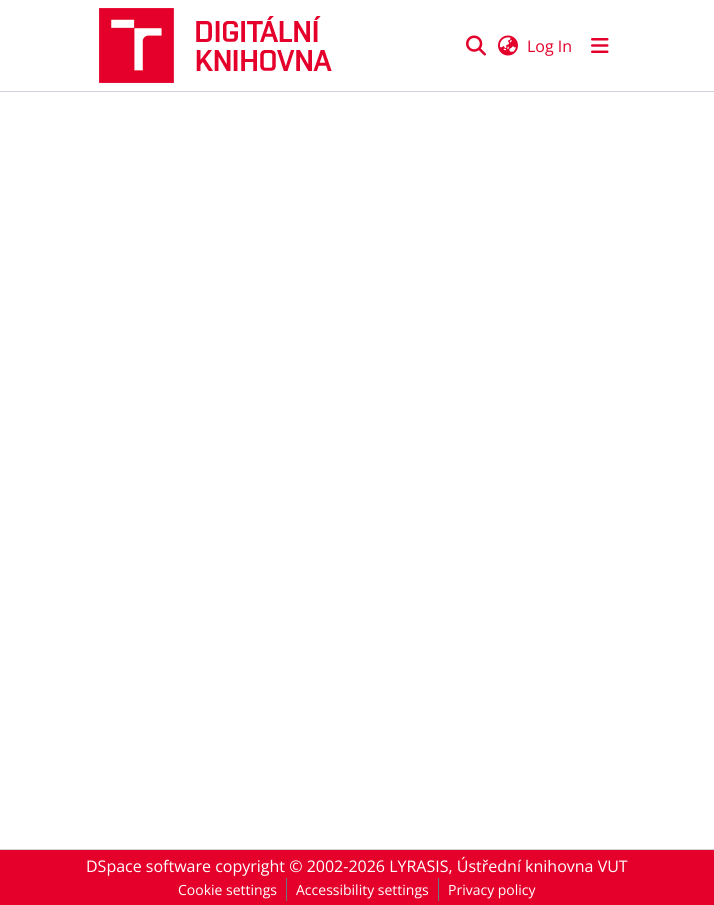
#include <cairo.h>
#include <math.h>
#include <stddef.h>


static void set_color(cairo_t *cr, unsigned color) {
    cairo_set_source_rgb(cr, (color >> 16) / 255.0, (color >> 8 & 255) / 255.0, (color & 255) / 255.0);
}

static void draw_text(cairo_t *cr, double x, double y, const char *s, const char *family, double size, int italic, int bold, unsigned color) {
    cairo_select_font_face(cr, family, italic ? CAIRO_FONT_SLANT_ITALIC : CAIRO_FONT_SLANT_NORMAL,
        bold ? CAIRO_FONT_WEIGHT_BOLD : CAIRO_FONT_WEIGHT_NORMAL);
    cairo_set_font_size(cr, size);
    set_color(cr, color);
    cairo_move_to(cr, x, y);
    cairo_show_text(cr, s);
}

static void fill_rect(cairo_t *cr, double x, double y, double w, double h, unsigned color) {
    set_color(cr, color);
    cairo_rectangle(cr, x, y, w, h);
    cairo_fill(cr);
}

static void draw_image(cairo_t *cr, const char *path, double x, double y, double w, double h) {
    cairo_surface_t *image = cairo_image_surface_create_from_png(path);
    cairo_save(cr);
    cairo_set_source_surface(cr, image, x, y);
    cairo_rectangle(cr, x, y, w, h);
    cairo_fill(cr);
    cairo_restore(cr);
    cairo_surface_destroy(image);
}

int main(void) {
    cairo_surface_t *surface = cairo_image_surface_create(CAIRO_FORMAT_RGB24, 714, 905);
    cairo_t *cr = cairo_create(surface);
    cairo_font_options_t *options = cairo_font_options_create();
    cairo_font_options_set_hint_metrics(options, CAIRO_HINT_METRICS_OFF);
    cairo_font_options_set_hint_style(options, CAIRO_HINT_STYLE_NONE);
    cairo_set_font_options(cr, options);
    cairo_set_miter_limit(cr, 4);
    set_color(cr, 0xFFFFFF);
    cairo_paint(cr);
    fill_rect(cr, 0, 91, 714, 1, 0xCED4DA);
    draw_image(cr, "assets/img1.png", 99, 8, 233, 75);
    draw_image(cr, "assets/img2.png", 466, 35, 20, 21);
    draw_image(cr, "assets/img3.png", 498, 35, 20, 21);
    draw_text(cr, 527, 52, "Log In", "Open Sans", 16, 0, 0, 0xE4002B);
    draw_image(cr, "assets/img4.png", 591, 38, 18, 15);
    fill_rect(cr, 0, 850, 714, 55, 0xE4002B);
    fill_rect(cr, 0, 849, 714, 1, 0xCED4DA);
    draw_text(cr, 86, 872, "DSpace software copyright © 2002-2026 LYRASIS, Ústřední knihovna VUT", "Open Sans", 16, 0, 0, 0xFFFFFF);
    draw_text(cr, 178, 895, "Cookie settings", "Open Sans", 14, 0, 0, 0xFFFFFF);
    fill_rect(cr, 286, 878, 1, 23, 0x6C757D);
    draw_text(cr, 296, 895, "Accessibility settings", "Open Sans", 14, 0, 0, 0xFFFFFF);
    fill_rect(cr, 438, 878, 1, 23, 0x6C757D);
    draw_text(cr, 448, 895, "Privacy policy", "Open Sans", 14, 0, 0, 0xFFFFFF);
    cairo_surface_write_to_png(surface, "output.png");
    cairo_font_options_destroy(options);
    cairo_destroy(cr);
    cairo_surface_destroy(surface);
    return 0;
}
